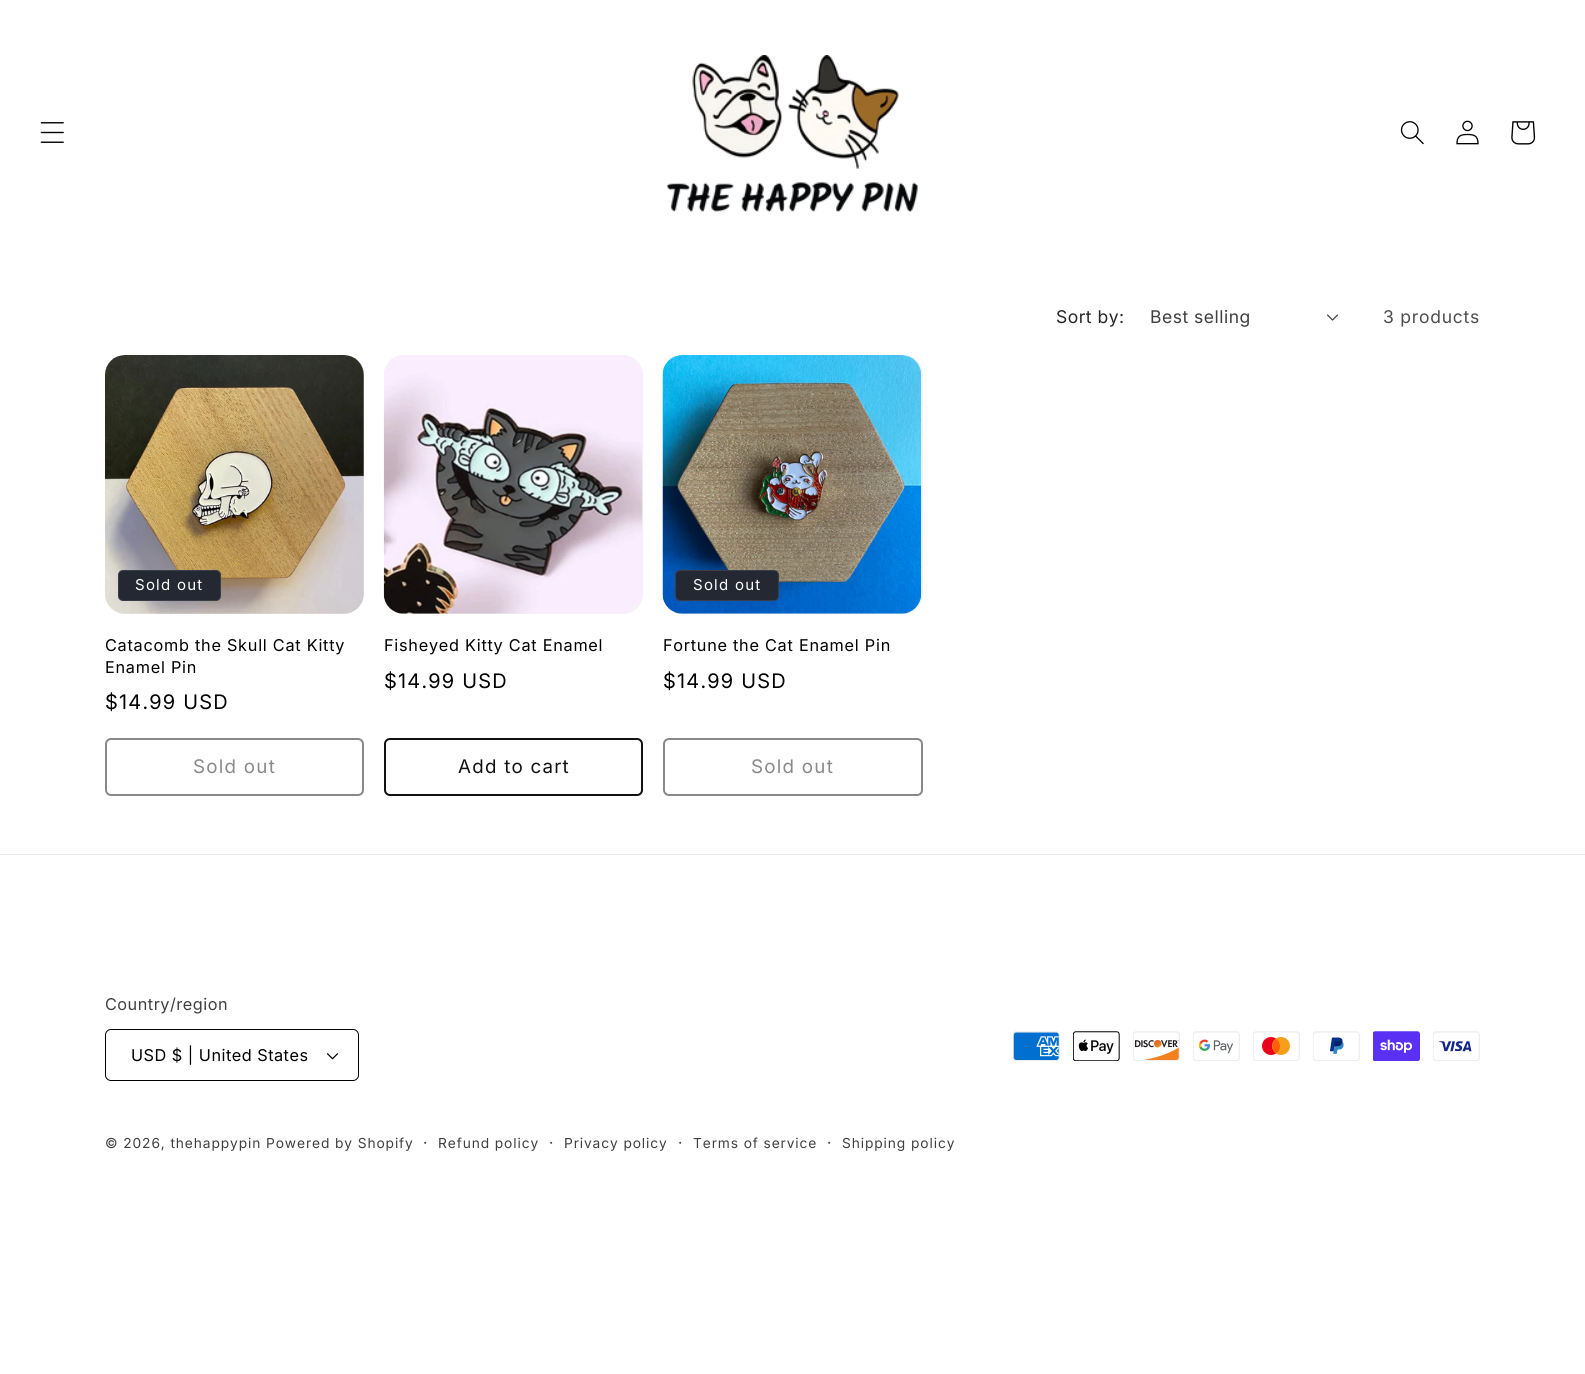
#include <cairo.h>
#include <math.h>
#include <stddef.h>


static void set_color(cairo_t *cr, unsigned color) {
    cairo_set_source_rgb(cr, (color >> 16) / 255.0, (color >> 8 & 255) / 255.0, (color & 255) / 255.0);
}

static void draw_spaced(cairo_t *cr, double x, double y, const char *s, double letter, double word) {
    cairo_move_to(cr, x, y);
    while (*s) {
        char ch[5] = {0};
        int n = 0;
        do ch[n++] = *s++; while ((*s & 0xC0) == 0x80);
        cairo_show_text(cr, ch);
        cairo_rel_move_to(cr, letter + word * (*ch == ' '), 0);
    }
}

static void fill_rect(cairo_t *cr, double x, double y, double w, double h, unsigned color) {
    set_color(cr, color);
    cairo_rectangle(cr, x, y, w, h);
    cairo_fill(cr);
}

static void rounded_rect(cairo_t *cr, double x, double y, double w, double h, double r) {
    cairo_new_sub_path(cr);
    cairo_arc(cr, x + w - r, y + h - r, r, 0, M_PI / 2);
    cairo_arc(cr, x + r, y + h - r, r, M_PI / 2, M_PI);
    cairo_arc(cr, x + r, y + r, r, M_PI, 1.5 * M_PI);
    cairo_arc(cr, x + w - r, y + r, r, 1.5 * M_PI, 2 * M_PI);
    cairo_close_path(cr);
}

static void draw_image(cairo_t *cr, const char *path, double x, double y, double w, double h) {
    cairo_surface_t *image = cairo_image_surface_create_from_png(path);
    cairo_save(cr);
    cairo_set_source_surface(cr, image, x, y);
    cairo_rectangle(cr, x, y, w, h);
    cairo_fill(cr);
    cairo_restore(cr);
    cairo_surface_destroy(image);
}

int main(void) {
    cairo_surface_t *surface = cairo_image_surface_create(CAIRO_FORMAT_RGB24, 1585, 1374);
    cairo_t *cr = cairo_create(surface);
    cairo_font_options_t *options = cairo_font_options_create();
    cairo_font_options_set_hint_metrics(options, CAIRO_HINT_METRICS_OFF);
    cairo_font_options_set_hint_style(options, CAIRO_HINT_STYLE_NONE);
    cairo_set_font_options(cr, options);
    cairo_set_miter_limit(cr, 4);
    set_color(cr, 0xFFFFFF);
    cairo_paint(cr);
    draw_image(cr, "assets/img1.png", 40, 122, 24, 21);
    draw_image(cr, "assets/img2.png", 667, 55, 251, 157);
    draw_image(cr, "assets/img3.png", 1400, 121, 24, 24);
    draw_image(cr, "assets/img4.png", 1456, 120, 23, 25);
    draw_image(cr, "assets/img5.png", 1511, 121, 25, 24);
    cairo_select_font_face(cr, "Inter", CAIRO_FONT_SLANT_NORMAL, CAIRO_FONT_WEIGHT_NORMAL);
    cairo_set_font_size(cr, 17.5);
    set_color(cr, 0x262626);
    draw_spaced(cr, 1056, 323, "Sort by:", 0.5, 0);
    set_color(cr, 0x404040);
    draw_spaced(cr, 1150, 323, "Best selling", 0.5, 0);
    draw_image(cr, "assets/img6.png", 1327, 314, 11, 7);
    set_color(cr, 0x4D4D4D);
    draw_spaced(cr, 1383, 323, "3 products", 0.75, 0);
    set_color(cr, 0xF3F3F3);
    rounded_rect(cr, 105, 355, 259, 259, 20);
    cairo_fill(cr);
    draw_image(cr, "assets/img7.png", 105, 355, 259, 259);
    set_color(cr, 0x242833);
    rounded_rect(cr, 118, 570, 103, 31, 5);
    cairo_fill(cr);
    rounded_rect(cr, 118.5, 570.5, 102, 30, 4.5);
    cairo_set_source_rgba(cr, 1, 1, 1, 0.1);
    cairo_set_line_width(cr, 1);
    cairo_stroke(cr);
    cairo_set_font_size(cr, 15);
    set_color(cr, 0xFFFFFF);
    draw_spaced(cr, 135, 590, "Sold out", 1.25, 0);
    cairo_set_font_size(cr, 16.25);
    set_color(cr, 0x000000);
    draw_spaced(cr, 105, 651, "Catacomb the Skull Cat Kitty", 0.75, 0);
    draw_spaced(cr, 105, 673, "Enamel Pin", 0.75, 0);
    cairo_select_font_face(cr, "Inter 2", CAIRO_FONT_SLANT_NORMAL, CAIRO_FONT_WEIGHT_NORMAL);
    cairo_set_font_size(cr, 20);
    draw_spaced(cr, 105, 709, "$14.99 USD", 1.25, 0);
    rounded_rect(cr, 106, 739, 257, 56, 5);
    set_color(cr, 0x898989);
    cairo_set_line_width(cr, 2);
    cairo_stroke(cr);
    cairo_select_font_face(cr, "Inter", CAIRO_FONT_SLANT_NORMAL, CAIRO_FONT_WEIGHT_NORMAL);
    cairo_set_font_size(cr, 18.75);
    draw_spaced(cr, 193, 773, "Sold out", 1.25, 0);
    set_color(cr, 0xF3F3F3);
    rounded_rect(cr, 384, 355, 259, 259, 20);
    cairo_fill(cr);
    draw_image(cr, "assets/img8.png", 383, 355, 260, 259);
    cairo_set_font_size(cr, 16.25);
    set_color(cr, 0x000000);
    draw_spaced(cr, 384, 651, "Fisheyed Kitty Cat Enamel", 0.75, 0);
    cairo_select_font_face(cr, "Inter 2", CAIRO_FONT_SLANT_NORMAL, CAIRO_FONT_WEIGHT_NORMAL);
    cairo_set_font_size(cr, 20);
    draw_spaced(cr, 384, 688, "$14.99 USD", 1.25, 0);
    rounded_rect(cr, 385, 739, 257, 56, 5);
    set_color(cr, 0x121212);
    cairo_stroke(cr);
    cairo_select_font_face(cr, "Inter", CAIRO_FONT_SLANT_NORMAL, CAIRO_FONT_WEIGHT_NORMAL);
    cairo_set_font_size(cr, 18.75);
    draw_spaced(cr, 458, 773, "Add to cart", 1.25, 0);
    set_color(cr, 0xF3F3F3);
    rounded_rect(cr, 663, 355, 260, 259, 20);
    cairo_fill(cr);
    draw_image(cr, "assets/img9.png", 662, 355, 260, 259);
    set_color(cr, 0x242833);
    rounded_rect(cr, 675, 570, 104, 31, 5);
    cairo_fill(cr);
    rounded_rect(cr, 675.5, 570.5, 103, 30, 4.5);
    cairo_set_source_rgba(cr, 1, 1, 1, 0.1);
    cairo_set_line_width(cr, 1);
    cairo_stroke(cr);
    cairo_set_font_size(cr, 15);
    set_color(cr, 0xFFFFFF);
    draw_spaced(cr, 693, 590, "Sold out", 1.25, 0);
    cairo_set_font_size(cr, 16.25);
    set_color(cr, 0x000000);
    draw_spaced(cr, 663, 651, "Fortune the Cat Enamel Pin", 0.75, 0);
    cairo_select_font_face(cr, "Inter 2", CAIRO_FONT_SLANT_NORMAL, CAIRO_FONT_WEIGHT_NORMAL);
    cairo_set_font_size(cr, 20);
    draw_spaced(cr, 663, 688, "$14.99 USD", 1.25, 0);
    rounded_rect(cr, 664, 739, 258, 56, 5);
    set_color(cr, 0x898989);
    cairo_set_line_width(cr, 2);
    cairo_stroke(cr);
    cairo_select_font_face(cr, "Inter", CAIRO_FONT_SLANT_NORMAL, CAIRO_FONT_WEIGHT_NORMAL);
    cairo_set_font_size(cr, 18.75);
    draw_spaced(cr, 751, 773, "Sold out", 1.25, 0);
    fill_rect(cr, 0, 854, 1585, 1, 0xEBEBEB);
    cairo_set_font_size(cr, 16.25);
    set_color(cr, 0x404040);
    draw_spaced(cr, 105, 1010, "Country/region", 0.5, 0);
    draw_image(cr, "assets/img10.png", 326, 1053, 13, 7);
    rounded_rect(cr, 105.5, 1029.5, 253, 51, 5.5);
    set_color(cr, 0x000000);
    cairo_set_line_width(cr, 1);
    cairo_stroke(cr);
    draw_spaced(cr, 131, 1061, "USD $ | United States", 0.5, 0);
    draw_image(cr, "assets/img11.png", 1013, 1031, 47, 30);
    draw_image(cr, "assets/img12.png", 1073, 1031, 47, 30);
    draw_image(cr, "assets/img13.png", 1133, 1031, 47, 30);
    draw_image(cr, "assets/img14.png", 1193, 1031, 47, 30);
    draw_image(cr, "assets/img15.png", 1253, 1031, 47, 30);
    draw_image(cr, "assets/img16.png", 1313, 1031, 47, 30);
    draw_image(cr, "assets/img17.png", 1373, 1031, 47, 30);
    draw_image(cr, "assets/img18.png", 1433, 1031, 47, 30);
    cairo_set_font_size(cr, 13.75);
    set_color(cr, 0x404040);
    draw_spaced(cr, 105, 1148, "© 2026, thehappypin", 0.9, 0);
    draw_spaced(cr, 266, 1148, "Powered by Shopify", 0.9, 0);
    cairo_set_font_size(cr, 15);
    draw_spaced(cr, 423, 1148, "·", 0.9, 0);
    cairo_set_font_size(cr, 13.75);
    draw_spaced(cr, 438, 1148, "Refund policy", 0.9, 0);
    cairo_set_font_size(cr, 15);
    draw_spaced(cr, 549, 1148, "·", 0.9, 0);
    cairo_set_font_size(cr, 13.75);
    draw_spaced(cr, 564, 1148, "Privacy policy", 0.9, 0);
    cairo_set_font_size(cr, 15);
    draw_spaced(cr, 678, 1148, "·", 0.9, 0);
    cairo_set_font_size(cr, 13.75);
    draw_spaced(cr, 693, 1148, "Terms of service", 0.9, 0);
    cairo_set_font_size(cr, 15);
    draw_spaced(cr, 827, 1148, "·", 0.9, 0);
    cairo_set_font_size(cr, 13.75);
    draw_spaced(cr, 842, 1148, "Shipping policy", 0.9, 0);
    cairo_surface_write_to_png(surface, "output.png");
    cairo_font_options_destroy(options);
    cairo_destroy(cr);
    cairo_surface_destroy(surface);
    return 0;
}
